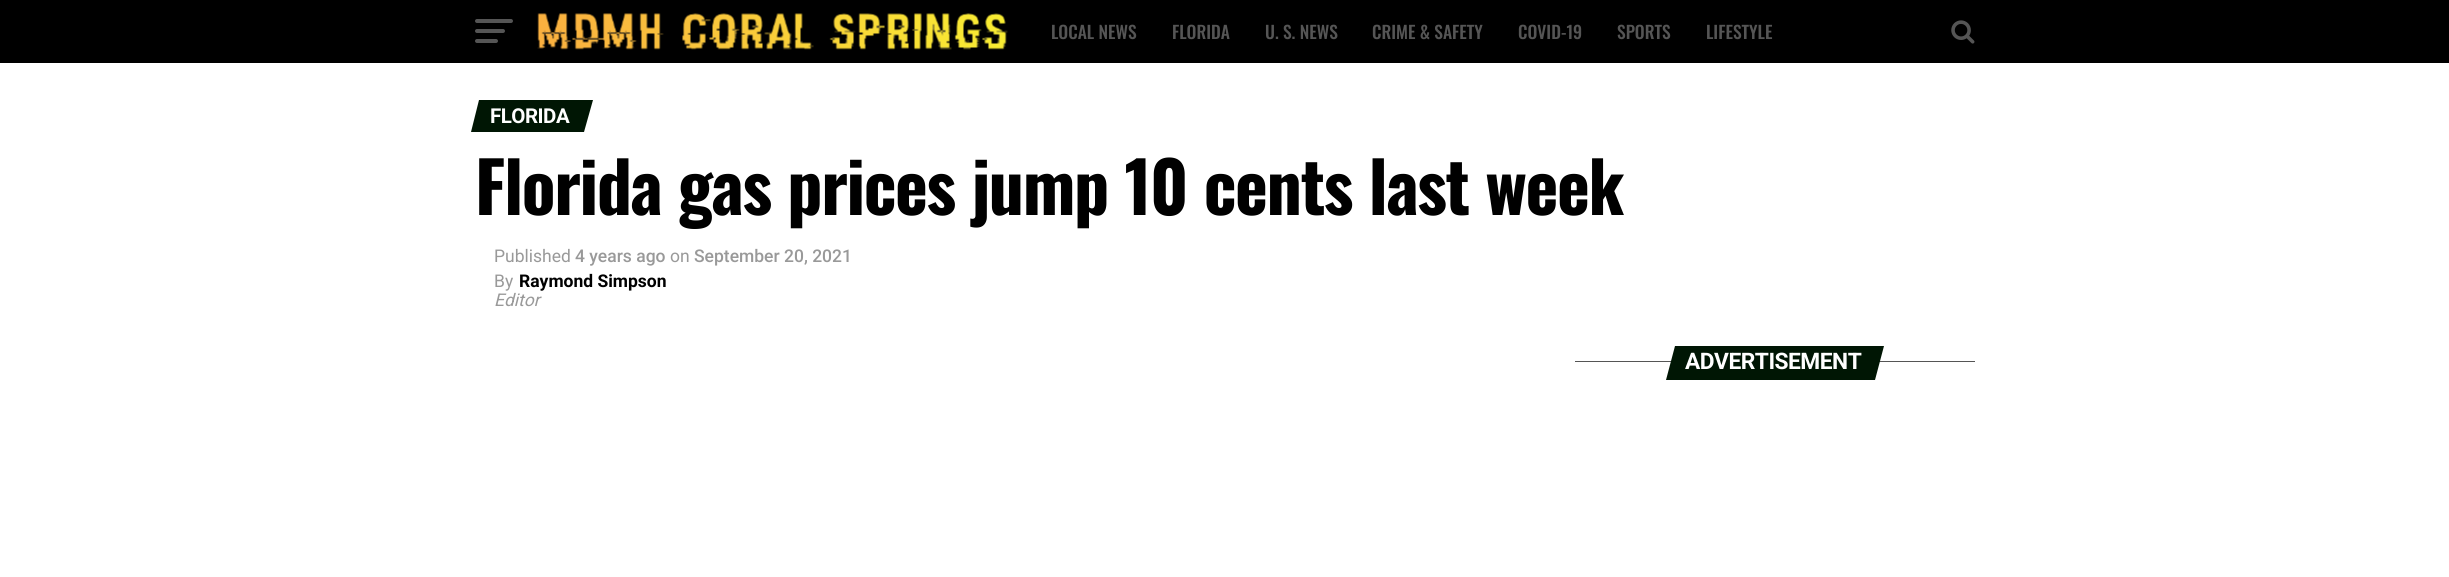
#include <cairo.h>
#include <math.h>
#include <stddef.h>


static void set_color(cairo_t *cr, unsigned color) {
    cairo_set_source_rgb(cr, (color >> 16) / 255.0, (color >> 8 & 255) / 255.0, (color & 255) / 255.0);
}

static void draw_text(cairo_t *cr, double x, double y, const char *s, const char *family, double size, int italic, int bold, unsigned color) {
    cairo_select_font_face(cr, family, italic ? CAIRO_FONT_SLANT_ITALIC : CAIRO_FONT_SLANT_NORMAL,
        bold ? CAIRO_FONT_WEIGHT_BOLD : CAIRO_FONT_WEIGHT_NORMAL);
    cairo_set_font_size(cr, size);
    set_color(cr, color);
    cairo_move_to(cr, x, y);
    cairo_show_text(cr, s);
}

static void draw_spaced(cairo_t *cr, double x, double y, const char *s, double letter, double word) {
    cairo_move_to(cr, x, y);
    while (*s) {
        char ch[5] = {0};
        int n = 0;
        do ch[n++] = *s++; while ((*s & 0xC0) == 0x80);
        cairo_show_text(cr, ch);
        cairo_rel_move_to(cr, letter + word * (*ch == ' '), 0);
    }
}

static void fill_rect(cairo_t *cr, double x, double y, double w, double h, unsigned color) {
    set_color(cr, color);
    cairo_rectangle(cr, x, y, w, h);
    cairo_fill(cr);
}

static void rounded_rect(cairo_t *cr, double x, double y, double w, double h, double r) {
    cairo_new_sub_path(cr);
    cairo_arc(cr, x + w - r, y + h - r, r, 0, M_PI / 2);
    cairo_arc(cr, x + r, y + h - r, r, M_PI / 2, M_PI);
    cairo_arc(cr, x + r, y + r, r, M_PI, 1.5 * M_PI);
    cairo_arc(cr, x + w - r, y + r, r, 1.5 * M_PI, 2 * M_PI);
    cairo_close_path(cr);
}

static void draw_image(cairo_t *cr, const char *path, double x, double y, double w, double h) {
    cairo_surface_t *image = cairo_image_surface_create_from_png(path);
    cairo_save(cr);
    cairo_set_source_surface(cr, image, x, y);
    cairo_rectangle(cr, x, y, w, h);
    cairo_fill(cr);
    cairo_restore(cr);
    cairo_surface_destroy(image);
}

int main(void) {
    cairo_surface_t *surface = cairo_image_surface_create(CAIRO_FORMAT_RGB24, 2449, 577);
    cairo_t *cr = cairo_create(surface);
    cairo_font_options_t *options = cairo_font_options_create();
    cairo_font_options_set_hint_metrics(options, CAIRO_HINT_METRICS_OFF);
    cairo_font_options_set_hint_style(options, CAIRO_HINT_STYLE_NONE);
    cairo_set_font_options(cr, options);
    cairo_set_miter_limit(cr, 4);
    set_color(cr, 0xFFFFFF);
    cairo_paint(cr);
    fill_rect(cr, 0, 0, 2449, 63, 0x000000);
    set_color(cr, 0x555555);
    rounded_rect(cr, 475, 19, 38, 4, 2);
    cairo_fill(cr);
    rounded_rect(cr, 475, 29, 30, 4, 2);
    cairo_fill(cr);
    rounded_rect(cr, 475, 39, 23, 4, 2);
    cairo_fill(cr);
    draw_image(cr, "assets/img1.png", 537, 13, 471, 37);
    draw_text(cr, 1051, 39, "LOCAL NEWS", "Oswald Medium", 17.5, 0, 0, 0x555555);
    draw_text(cr, 1172, 39, "FLORIDA", "Oswald Medium", 17.5, 0, 0, 0x555555);
    draw_text(cr, 1265, 39, "U. S. NEWS", "Oswald Medium", 17.5, 0, 0, 0x555555);
    draw_text(cr, 1372, 39, "CRIME & SAFETY", "Oswald Medium", 17.5, 0, 0, 0x555555);
    draw_text(cr, 1518, 39, "COVID-19", "Oswald Medium", 17.5, 0, 0, 0x555555);
    draw_text(cr, 1617, 39, "SPORTS", "Oswald Medium", 17.5, 0, 0, 0x555555);
    draw_text(cr, 1706, 39, "LIFESTYLE", "Oswald Medium", 17.5, 0, 0, 0x555555);
    draw_image(cr, "assets/img2.png", 1951, 20, 24, 24);
    set_color(cr, 0x001604);
    cairo_new_path(cr);
    cairo_move_to(cr, 479, 100);
    cairo_line_to(cr, 593, 100);
    cairo_line_to(cr, 584, 132);
    cairo_line_to(cr, 471, 132);
    cairo_close_path(cr);
    cairo_fill(cr);
    cairo_select_font_face(cr, "Roboto", CAIRO_FONT_SLANT_NORMAL, CAIRO_FONT_WEIGHT_BOLD);
    cairo_set_font_size(cr, 20.5);
    set_color(cr, 0xFFFFFF);
    draw_spaced(cr, 490, 123, "FLORIDA", -0.5, 0);
    cairo_select_font_face(cr, "Oswald", CAIRO_FONT_SLANT_NORMAL, CAIRO_FONT_WEIGHT_BOLD);
    cairo_set_font_size(cr, 70);
    set_color(cr, 0x000000);
    draw_spaced(cr, 475, 215, "Florida gas prices jump 10 cents last week", -1.4, 0);
    draw_text(cr, 494, 262, "Published", "Roboto", 17.5, 0, 0, 0x999999);
    draw_text(cr, 575, 262, "4 years ago", "Roboto Medium", 17.5, 0, 0, 0x999999);
    draw_text(cr, 670, 262, "on", "Roboto", 17.5, 0, 0, 0x999999);
    draw_text(cr, 694, 262, "September 20, 2021", "Roboto Medium", 17.5, 0, 0, 0x999999);
    draw_text(cr, 494, 287, "By", "Roboto", 17.5, 0, 0, 0x999999);
    draw_text(cr, 519, 287, "Raymond Simpson", "Roboto", 17.5, 0, 1, 0x000000);
    draw_text(cr, 494, 306, "Editor", "Roboto", 17.5, 1, 0, 0x999999);
    fill_rect(cr, 1575, 361, 400, 1, 0x555555);
    set_color(cr, 0x001604);
    cairo_new_path(cr);
    cairo_move_to(cr, 1675, 346);
    cairo_line_to(cr, 1884, 346);
    cairo_line_to(cr, 1875, 380);
    cairo_line_to(cr, 1666, 380);
    cairo_close_path(cr);
    cairo_fill(cr);
    cairo_select_font_face(cr, "Roboto", CAIRO_FONT_SLANT_NORMAL, CAIRO_FONT_WEIGHT_BOLD);
    cairo_set_font_size(cr, 22.75);
    set_color(cr, 0xFFFFFF);
    draw_spaced(cr, 1685, 369, "ADVERTISEMENT", -0.5, 0);
    cairo_surface_write_to_png(surface, "output.png");
    cairo_font_options_destroy(options);
    cairo_destroy(cr);
    cairo_surface_destroy(surface);
    return 0;
}
